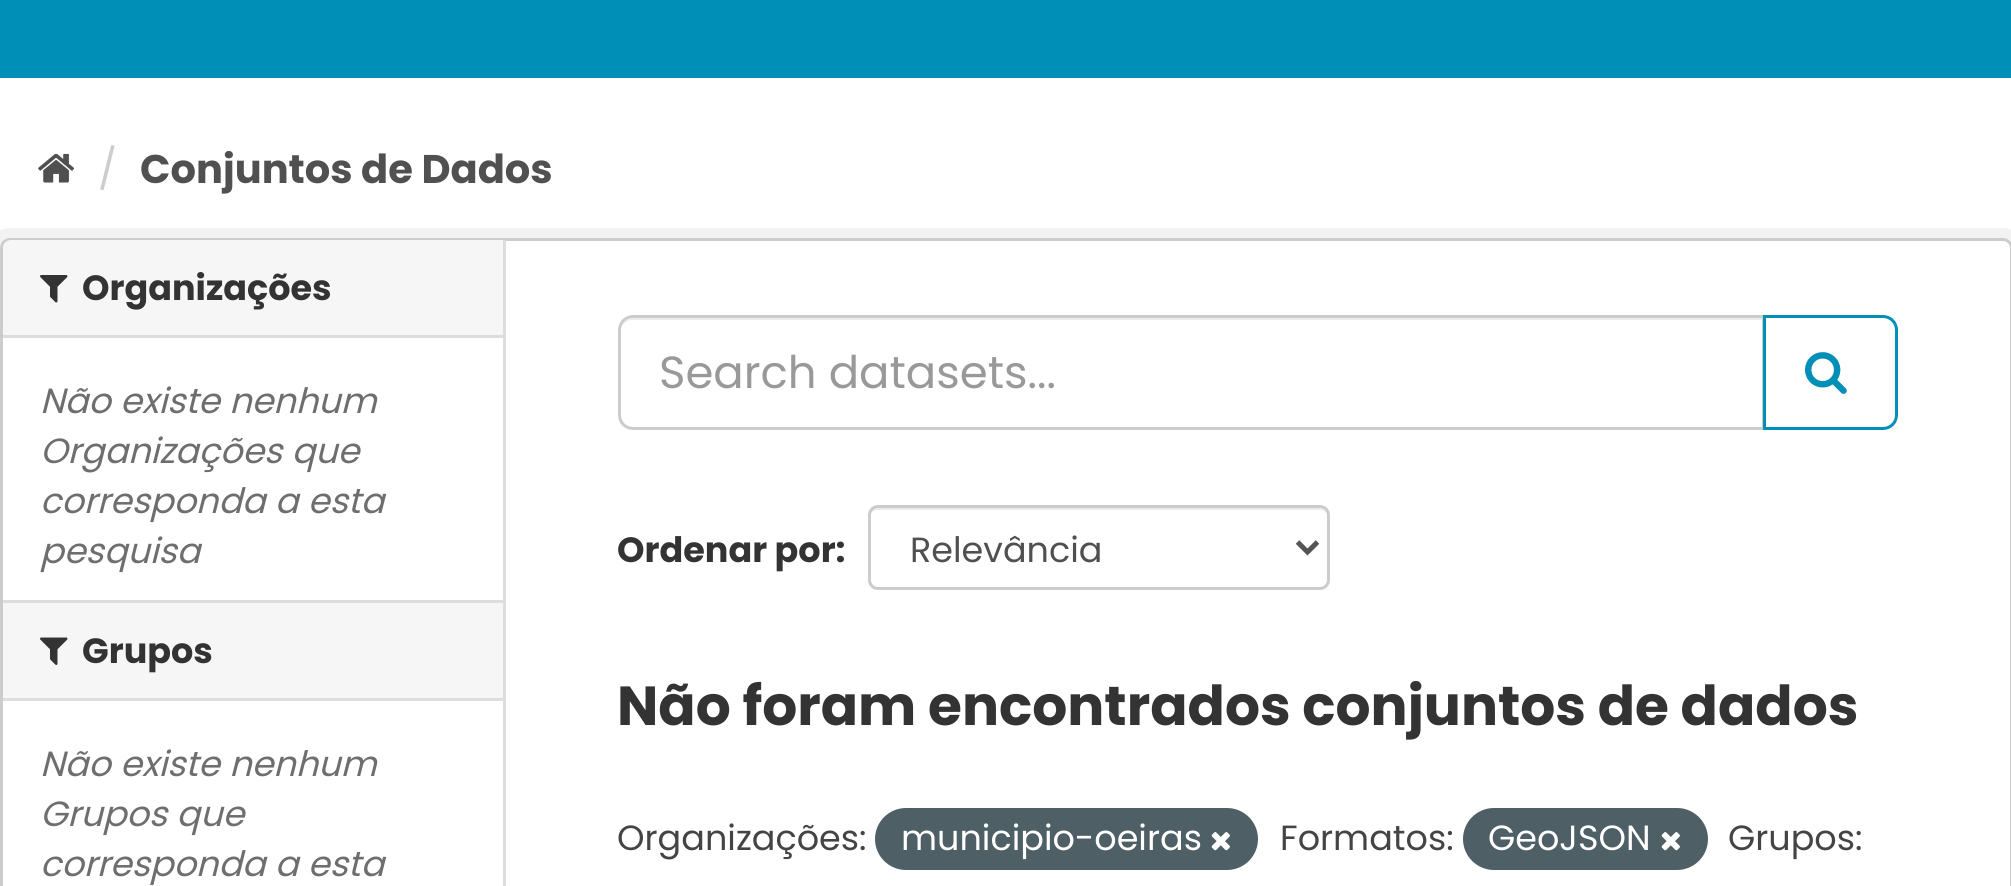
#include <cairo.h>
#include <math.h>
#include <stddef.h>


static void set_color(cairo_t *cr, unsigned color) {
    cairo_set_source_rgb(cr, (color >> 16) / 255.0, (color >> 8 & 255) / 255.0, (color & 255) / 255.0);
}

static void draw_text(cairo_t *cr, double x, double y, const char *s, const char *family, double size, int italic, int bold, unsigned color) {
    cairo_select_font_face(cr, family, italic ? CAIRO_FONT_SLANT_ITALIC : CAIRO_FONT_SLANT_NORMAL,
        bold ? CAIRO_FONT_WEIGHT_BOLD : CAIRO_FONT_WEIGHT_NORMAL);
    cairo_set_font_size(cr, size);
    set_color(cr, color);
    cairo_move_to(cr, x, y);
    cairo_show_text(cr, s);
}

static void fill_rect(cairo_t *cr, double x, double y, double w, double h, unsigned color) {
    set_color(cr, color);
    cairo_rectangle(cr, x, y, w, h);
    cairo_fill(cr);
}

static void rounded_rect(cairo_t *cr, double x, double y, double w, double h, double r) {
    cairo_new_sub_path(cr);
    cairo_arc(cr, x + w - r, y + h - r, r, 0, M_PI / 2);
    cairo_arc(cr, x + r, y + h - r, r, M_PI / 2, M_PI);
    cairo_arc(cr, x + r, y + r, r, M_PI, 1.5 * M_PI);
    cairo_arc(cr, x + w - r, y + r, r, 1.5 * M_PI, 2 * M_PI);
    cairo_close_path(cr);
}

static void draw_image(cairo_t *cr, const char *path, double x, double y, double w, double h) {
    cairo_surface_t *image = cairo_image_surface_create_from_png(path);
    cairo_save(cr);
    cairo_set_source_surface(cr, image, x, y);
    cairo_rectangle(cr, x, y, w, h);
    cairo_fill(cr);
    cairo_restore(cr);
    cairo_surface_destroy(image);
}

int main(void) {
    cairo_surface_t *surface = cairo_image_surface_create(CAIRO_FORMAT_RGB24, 2011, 886);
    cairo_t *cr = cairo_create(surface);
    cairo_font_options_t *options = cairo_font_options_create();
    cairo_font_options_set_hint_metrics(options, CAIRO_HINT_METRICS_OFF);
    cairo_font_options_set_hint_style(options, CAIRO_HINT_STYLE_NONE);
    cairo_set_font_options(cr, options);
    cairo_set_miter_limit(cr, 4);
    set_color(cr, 0xFFFFFF);
    cairo_paint(cr);
    fill_rect(cr, 0, 0, 2011, 78, 0x008FB6);
    draw_image(cr, "assets/img1.png", 38, 153, 36, 30);
    draw_text(cr, 98, 183, "/", "Poppins", 40, 0, 0, 0xCCCCCC);
    draw_text(cr, 140, 183, "Conjuntos de Dados", "Poppins", 40, 0, 1, 0x505050);
    rounded_rect(cr, -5, 233, 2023, 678, 15);
    set_color(cr, 0xF2F2F2);
    cairo_set_line_width(cr, 10);
    cairo_stroke(cr);
    set_color(cr, 0xFFFFFF);
    rounded_rect(cr, 1.5, 239.5, 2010, 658, 8.5);
    cairo_fill_preserve(cr);
    set_color(cr, 0xCCCCCC);
    cairo_set_line_width(cr, 3);
    cairo_stroke(cr);
    set_color(cr, 0xF6F6F6);
    cairo_new_path(cr);
    cairo_move_to(cr, 11, 240);
    cairo_line_to(cr, 503, 240);
    cairo_line_to(cr, 503, 338);
    cairo_line_to(cr, 3, 338);
    cairo_line_to(cr, 3, 248);
    cairo_curve_to(cr, 3, 243.5, 6.5, 240, 11, 240);
    cairo_close_path(cr);
    cairo_fill(cr);
    fill_rect(cr, 3, 335, 500, 3, 0xDDDDDD);
    draw_image(cr, "assets/img2.png", 40, 275, 28, 28);
    draw_text(cr, 82, 300, "Organizações", "Poppins", 35, 0, 1, 0x333333);
    draw_text(cr, 40, 413, "Não existe nenhum", "Poppins", 35, 1, 0, 0x6E6E6E);
    draw_text(cr, 40, 463, "Organizações que", "Poppins", 35, 1, 0, 0x6E6E6E);
    draw_text(cr, 40, 513, "corresponda a esta", "Poppins", 35, 1, 0, 0x6E6E6E);
    draw_text(cr, 40, 563, "pesquisa", "Poppins", 35, 1, 0, 0x6E6E6E);
    fill_rect(cr, 3, 603, 500, 95, 0xF6F6F6);
    fill_rect(cr, 3, 600, 500, 3, 0xDDDDDD);
    fill_rect(cr, 3, 698, 500, 3, 0xDDDDDD);
    draw_image(cr, "assets/img3.png", 40, 637, 28, 28);
    draw_text(cr, 82, 663, "Grupos", "Poppins", 35, 0, 1, 0x333333);
    draw_text(cr, 40, 776, "Não existe nenhum", "Poppins", 35, 1, 0, 0x6E6E6E);
    draw_text(cr, 40, 826, "Grupos que", "Poppins", 35, 1, 0, 0x6E6E6E);
    draw_text(cr, 40, 876, "corresponda a esta", "Poppins", 35, 1, 0, 0x6E6E6E);
    fill_rect(cr, 503, 240, 3, 646, 0xDDDDDD);
    set_color(cr, 0xECECEC);
    cairo_new_path(cr);
    cairo_move_to(cr, 632, 320);
    cairo_line_to(cr, 1762, 320);
    cairo_line_to(cr, 1762, 428);
    cairo_line_to(cr, 1763, 428);
    cairo_line_to(cr, 1763, 318);
    cairo_line_to(cr, 633, 318);
    cairo_curve_to(cr, 625, 318, 620, 325, 620, 332);
    cairo_curve_to(cr, 620, 326, 626, 320, 632, 320);
    cairo_close_path(cr);
    cairo_fill(cr);
    cairo_new_path(cr);
    cairo_move_to(cr, 633, 316.5);
    cairo_line_to(cr, 1763.5, 316.5);
    cairo_line_to(cr, 1763.5, 428.5);
    cairo_line_to(cr, 633, 428.5);
    cairo_curve_to(cr, 625.5, 428.5, 619.5, 422.5, 619.5, 415);
    cairo_line_to(cr, 619.5, 330);
    cairo_curve_to(cr, 619.5, 322.5, 625.5, 316.5, 633, 316.5);
    cairo_close_path(cr);
    set_color(cr, 0xCCCCCC);
    cairo_stroke(cr);
    draw_text(cr, 659, 388, "Search datasets...", "Poppins", 45, 0, 0, 0x999999);
    set_color(cr, 0xFFFFFF);
    cairo_new_path(cr);
    cairo_move_to(cr, 1764.5, 316.5);
    cairo_line_to(cr, 1883, 316.5);
    cairo_curve_to(cr, 1890.5, 316.5, 1896.5, 322.5, 1896.5, 330);
    cairo_line_to(cr, 1896.5, 415);
    cairo_curve_to(cr, 1896.5, 422.5, 1890.5, 428.5, 1883, 428.5);
    cairo_line_to(cr, 1764.5, 428.5);
    cairo_close_path(cr);
    cairo_fill_preserve(cr);
    set_color(cr, 0x008FB6);
    cairo_stroke(cr);
    draw_image(cr, "assets/img4.png", 1805, 352, 42, 42);
    draw_text(cr, 617, 562, "Ordenar por:", "Poppins", 35, 0, 1, 0x333333);
    set_color(cr, 0xECECEC);
    cairo_new_path(cr);
    cairo_move_to(cr, 878, 510);
    cairo_line_to(cr, 1320, 510);
    cairo_curve_to(cr, 1324, 510, 1328, 513, 1328, 518);
    cairo_curve_to(cr, 1328, 513, 1326, 508, 1320, 508);
    cairo_line_to(cr, 878, 508);
    cairo_curve_to(cr, 872, 508, 870, 513, 870, 518);
    cairo_curve_to(cr, 870, 513, 873, 510, 878, 510);
    cairo_close_path(cr);
    cairo_fill(cr);
    rounded_rect(cr, 869.5, 506.5, 459, 82, 8.5);
    set_color(cr, 0xCCCCCC);
    cairo_stroke(cr);
    cairo_new_path(cr);
    cairo_move_to(cr, 1297.5, 542);
    cairo_line_to(cr, 1307.5, 552);
    cairo_line_to(cr, 1317.5, 542);
    set_color(cr, 0x555555);
    cairo_set_line_width(cr, 5);
    cairo_stroke(cr);
    draw_text(cr, 910, 562, "Relevância", "Poppins", 35, 0, 0, 0x505050);
    draw_text(cr, 617, 725, "Não foram encontrados conjuntos de dados", "Poppins", 55, 0, 1, 0x333333);
    draw_text(cr, 617, 850, "Organizações:", "Poppins", 35, 0, 0, 0x444444);
    set_color(cr, 0x4E5F65);
    rounded_rect(cr, 875, 808, 383, 62, 31);
    cairo_fill(cr);
    draw_text(cr, 901, 850, "municipio-oeiras", "Poppins", 35, 0, 0, 0xFFFFFF);
    draw_image(cr, "assets/img5.png", 1211, 832, 19, 19);
    draw_text(cr, 1280, 850, "Formatos:", "Poppins", 35, 0, 0, 0x444444);
    set_color(cr, 0x4E5F65);
    rounded_rect(cr, 1463, 808, 245, 62, 31);
    cairo_fill(cr);
    draw_text(cr, 1488, 850, "GeoJSON", "Poppins", 35, 0, 0, 0xFFFFFF);
    draw_image(cr, "assets/img5.png", 1661, 832, 19, 19);
    draw_text(cr, 1728, 850, "Grupos:", "Poppins", 35, 0, 0, 0x444444);
    cairo_surface_write_to_png(surface, "output.png");
    cairo_font_options_destroy(options);
    cairo_destroy(cr);
    cairo_surface_destroy(surface);
    return 0;
}
